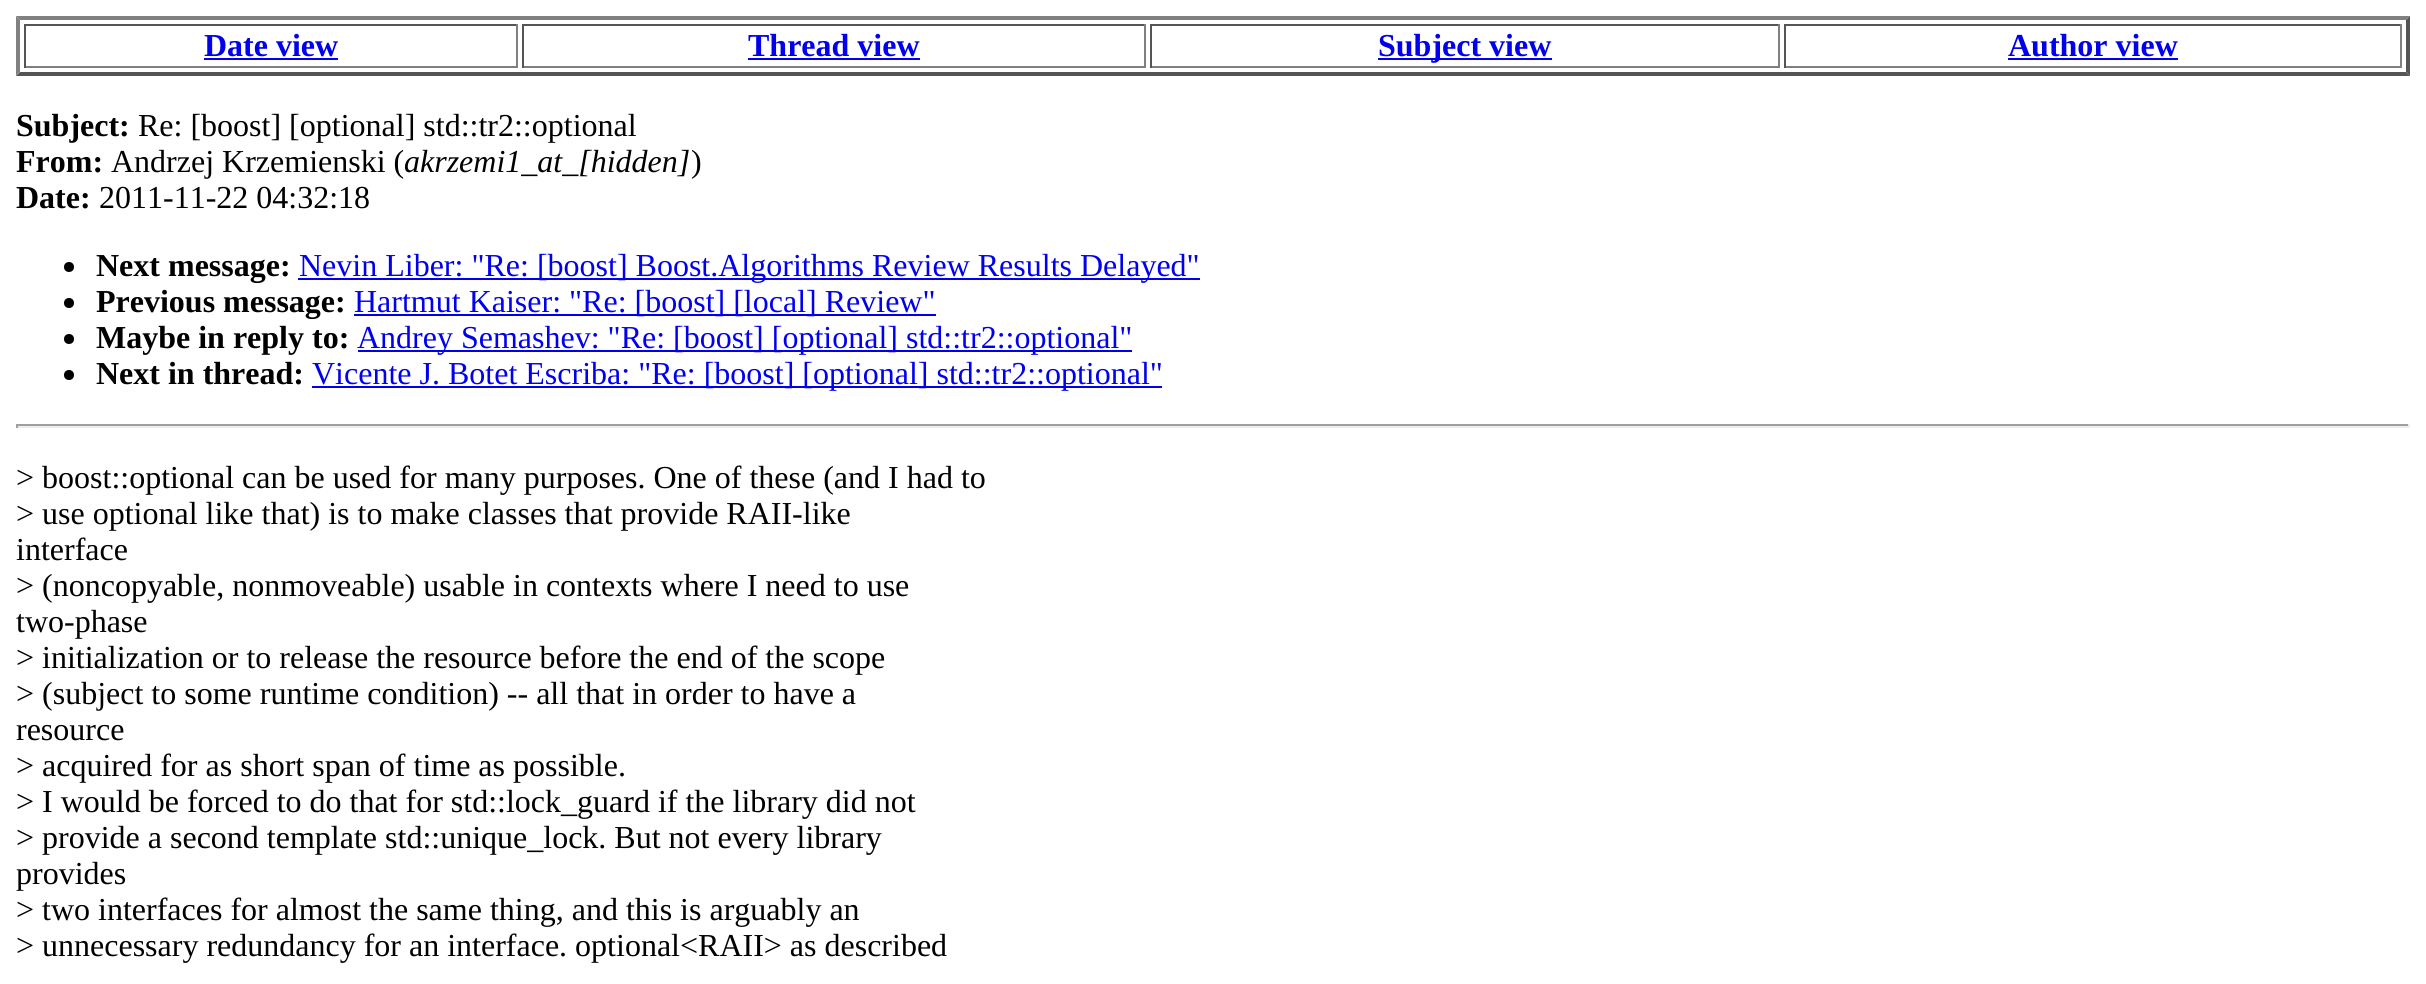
#include <cairo.h>
#include <math.h>
#include <stddef.h>


static void set_color(cairo_t *cr, unsigned color) {
    cairo_set_source_rgb(cr, (color >> 16) / 255.0, (color >> 8 & 255) / 255.0, (color & 255) / 255.0);
}

static void draw_text(cairo_t *cr, double x, double y, const char *s, const char *family, double size, int italic, int bold, unsigned color) {
    cairo_select_font_face(cr, family, italic ? CAIRO_FONT_SLANT_ITALIC : CAIRO_FONT_SLANT_NORMAL,
        bold ? CAIRO_FONT_WEIGHT_BOLD : CAIRO_FONT_WEIGHT_NORMAL);
    cairo_set_font_size(cr, size);
    set_color(cr, color);
    cairo_move_to(cr, x, y);
    cairo_show_text(cr, s);
}

static void fill_rect(cairo_t *cr, double x, double y, double w, double h, unsigned color) {
    set_color(cr, color);
    cairo_rectangle(cr, x, y, w, h);
    cairo_fill(cr);
}

int main(void) {
    cairo_surface_t *surface = cairo_image_surface_create(CAIRO_FORMAT_RGB24, 2426, 984);
    cairo_t *cr = cairo_create(surface);
    cairo_font_options_t *options = cairo_font_options_create();
    cairo_font_options_set_hint_metrics(options, CAIRO_HINT_METRICS_OFF);
    cairo_font_options_set_hint_style(options, CAIRO_HINT_STYLE_NONE);
    cairo_set_font_options(cr, options);
    cairo_set_miter_limit(cr, 4);
    set_color(cr, 0xFFFFFF);
    cairo_paint(cr);
    set_color(cr, 0x808080);
    cairo_new_path(cr);
    cairo_move_to(cr, 16, 16);
    cairo_line_to(cr, 2410, 16);
    cairo_line_to(cr, 2406, 20);
    cairo_line_to(cr, 20, 20);
    cairo_close_path(cr);
    cairo_fill(cr);
    set_color(cr, 0x555555);
    cairo_new_path(cr);
    cairo_move_to(cr, 2410, 16);
    cairo_line_to(cr, 2410, 76);
    cairo_line_to(cr, 2406, 72);
    cairo_line_to(cr, 2406, 20);
    cairo_close_path(cr);
    cairo_fill(cr);
    cairo_new_path(cr);
    cairo_move_to(cr, 2410, 76);
    cairo_line_to(cr, 16, 76);
    cairo_line_to(cr, 20, 72);
    cairo_line_to(cr, 2406, 72);
    cairo_close_path(cr);
    cairo_fill(cr);
    set_color(cr, 0x808080);
    cairo_new_path(cr);
    cairo_move_to(cr, 16, 76);
    cairo_line_to(cr, 16, 16);
    cairo_line_to(cr, 20, 20);
    cairo_line_to(cr, 20, 72);
    cairo_close_path(cr);
    cairo_fill(cr);
    fill_rect(cr, 24, 24, 494, 2, 0x555555);
    fill_rect(cr, 516, 24, 2, 44, 0x808080);
    fill_rect(cr, 24, 66, 494, 2, 0x808080);
    fill_rect(cr, 24, 24, 2, 44, 0x555555);
    draw_text(cr, 204, 56, "Date view", "Liberation Serif", 32, 0, 1, 0x0000EE);
    fill_rect(cr, 204, 58, 134, 2, 0x0000EE);
    fill_rect(cr, 522, 24, 624, 2, 0x555555);
    fill_rect(cr, 1144, 24, 2, 44, 0x808080);
    fill_rect(cr, 522, 66, 624, 2, 0x808080);
    fill_rect(cr, 522, 24, 2, 44, 0x555555);
    draw_text(cr, 748, 56, "Thread view", "Liberation Serif", 32, 0, 1, 0x0000EE);
    fill_rect(cr, 748, 58, 172, 2, 0x0000EE);
    fill_rect(cr, 1150, 24, 630, 2, 0x555555);
    fill_rect(cr, 1778, 24, 2, 44, 0x808080);
    fill_rect(cr, 1150, 66, 630, 2, 0x808080);
    fill_rect(cr, 1150, 24, 2, 44, 0x555555);
    fill_rect(cr, 1378, 58, 174, 2, 0x0000EE);
    draw_text(cr, 1378, 56, "Subject view", "Liberation Serif", 32, 0, 1, 0x0000EE);
    fill_rect(cr, 1784, 24, 618, 2, 0x555555);
    fill_rect(cr, 2400, 24, 2, 44, 0x808080);
    fill_rect(cr, 1784, 66, 618, 2, 0x808080);
    fill_rect(cr, 1784, 24, 2, 44, 0x555555);
    draw_text(cr, 2008, 56, "Author view", "Liberation Serif", 32, 0, 1, 0x0000EE);
    fill_rect(cr, 2008, 58, 170, 2, 0x0000EE);
    draw_text(cr, 16, 136, "Subject:", "Liberation Serif", 32, 0, 1, 0x000000);
    draw_text(cr, 138, 136, "Re: [boost] [optional] std::tr2::optional", "Liberation Serif", 32, 0, 0, 0x000000);
    draw_text(cr, 16, 172, "From:", "Liberation Serif", 32, 0, 1, 0x000000);
    draw_text(cr, 111, 172, "Andrzej Krzemienski (", "Liberation Serif", 32, 0, 0, 0x000000);
    draw_text(cr, 404, 172, "akrzemi1_at_[hidden]", "Liberation Serif", 32, 1, 0, 0x000000);
    draw_text(cr, 691, 172, ")", "Liberation Serif", 32, 0, 0, 0x000000);
    draw_text(cr, 16, 208, "Date:", "Liberation Serif", 32, 0, 1, 0x000000);
    draw_text(cr, 99, 208, "2011-11-22 04:32:18", "Liberation Serif", 32, 0, 0, 0x000000);
    cairo_new_path(cr);
    cairo_arc(cr, 69, 267, 5, 0, 2 * M_PI);
    cairo_fill(cr);
    draw_text(cr, 96, 276, "Next message:", "Liberation Serif", 32, 0, 1, 0x000000);
    fill_rect(cr, 298, 278, 902, 2, 0x0000EE);
    draw_text(cr, 299, 276, "Nevin Liber: \"Re: [boost] Boost.Algorithms Review Results Delayed\"", "Liberation Serif", 32, 0, 0, 0x0000EE);
    set_color(cr, 0x000000);
    cairo_new_path(cr);
    cairo_arc(cr, 69, 303, 5, 0, 2 * M_PI);
    cairo_fill(cr);
    draw_text(cr, 96, 312, "Previous message:", "Liberation Serif", 32, 0, 1, 0x000000);
    fill_rect(cr, 354, 314, 582, 2, 0x0000EE);
    draw_text(cr, 354, 312, "Hartmut Kaiser: \"Re: [boost] [local] Review\"", "Liberation Serif", 32, 0, 0, 0x0000EE);
    set_color(cr, 0x000000);
    cairo_new_path(cr);
    cairo_arc(cr, 69, 339, 5, 0, 2 * M_PI);
    cairo_fill(cr);
    draw_text(cr, 96, 348, "Maybe in reply to:", "Liberation Serif", 32, 0, 1, 0x000000);
    fill_rect(cr, 358, 350, 774, 2, 0x0000EE);
    draw_text(cr, 357, 348, "Andrey Semashev: \"Re: [boost] [optional] std::tr2::optional\"", "Liberation Serif", 32, 0, 0, 0x0000EE);
    set_color(cr, 0x000000);
    cairo_new_path(cr);
    cairo_arc(cr, 69, 375, 5, 0, 2 * M_PI);
    cairo_fill(cr);
    draw_text(cr, 96, 384, "Next in thread:", "Liberation Serif", 32, 0, 1, 0x000000);
    fill_rect(cr, 312, 386, 850, 2, 0x0000EE);
    draw_text(cr, 312, 384, "Vicente J. Botet Escriba: \"Re: [boost] [optional] std::tr2::optional\"", "Liberation Serif", 32, 0, 0, 0x0000EE);
    fill_rect(cr, 16, 424, 2394, 2, 0x9F9F9F);
    fill_rect(cr, 2408, 424, 2, 4, 0xEEEEEE);
    fill_rect(cr, 16, 426, 2394, 2, 0xEEEEEE);
    fill_rect(cr, 16, 424, 2, 4, 0x9F9F9F);
    draw_text(cr, 16, 488, "> boost::optional can be used for many purposes. One of these (and I had to", "Liberation Serif", 32, 0, 0, 0x000000);
    draw_text(cr, 16, 524, "> use optional like that) is to make classes that provide RAII-like", "Liberation Serif", 32, 0, 0, 0x000000);
    draw_text(cr, 16, 560, "interface", "Liberation Serif", 32, 0, 0, 0x000000);
    draw_text(cr, 16, 596, "> (noncopyable, nonmoveable) usable in contexts where I need to use", "Liberation Serif", 32, 0, 0, 0x000000);
    draw_text(cr, 16, 632, "two-phase", "Liberation Serif", 32, 0, 0, 0x000000);
    draw_text(cr, 16, 668, "> initialization or to release the resource before the end of the scope", "Liberation Serif", 32, 0, 0, 0x000000);
    draw_text(cr, 16, 704, "> (subject to some runtime condition) -- all that in order to have a", "Liberation Serif", 32, 0, 0, 0x000000);
    draw_text(cr, 16, 740, "resource", "Liberation Serif", 32, 0, 0, 0x000000);
    draw_text(cr, 16, 776, "> acquired for as short span of time as possible.", "Liberation Serif", 32, 0, 0, 0x000000);
    draw_text(cr, 16, 812, "> I would be forced to do that for std::lock_guard if the library did not", "Liberation Serif", 32, 0, 0, 0x000000);
    draw_text(cr, 16, 848, "> provide a second template std::unique_lock. But not every library", "Liberation Serif", 32, 0, 0, 0x000000);
    draw_text(cr, 16, 884, "provides", "Liberation Serif", 32, 0, 0, 0x000000);
    draw_text(cr, 16, 920, "> two interfaces for almost the same thing, and this is arguably an", "Liberation Serif", 32, 0, 0, 0x000000);
    draw_text(cr, 16, 956, "> unnecessary redundancy for an interface. optional<RAII> as described", "Liberation Serif", 32, 0, 0, 0x000000);
    cairo_surface_write_to_png(surface, "output.png");
    cairo_font_options_destroy(options);
    cairo_destroy(cr);
    cairo_surface_destroy(surface);
    return 0;
}
